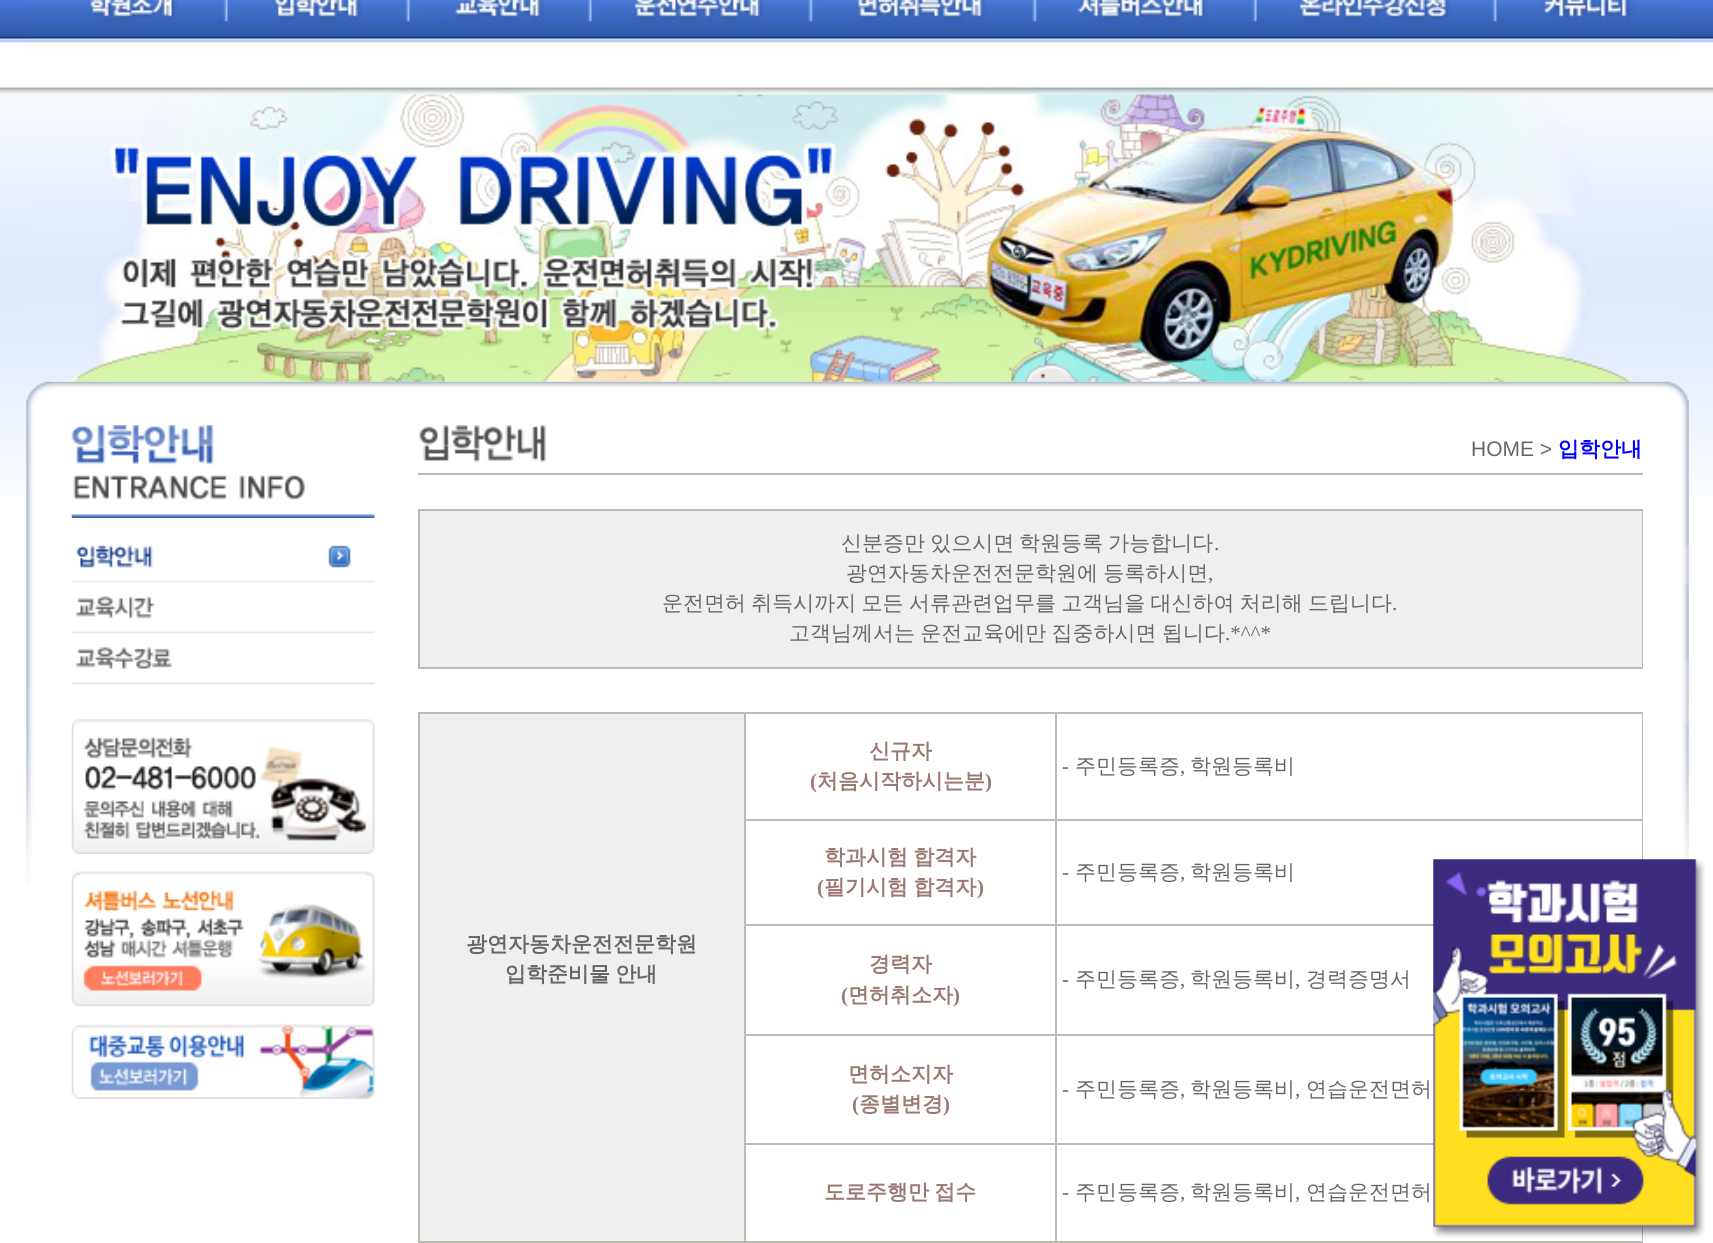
#include <cairo.h>
#include <math.h>
#include <stddef.h>


static void set_color(cairo_t *cr, unsigned color) {
    cairo_set_source_rgb(cr, (color >> 16) / 255.0, (color >> 8 & 255) / 255.0, (color & 255) / 255.0);
}

static void draw_text(cairo_t *cr, double x, double y, const char *s, const char *family, double size, int italic, int bold, unsigned color) {
    cairo_select_font_face(cr, family, italic ? CAIRO_FONT_SLANT_ITALIC : CAIRO_FONT_SLANT_NORMAL,
        bold ? CAIRO_FONT_WEIGHT_BOLD : CAIRO_FONT_WEIGHT_NORMAL);
    cairo_set_font_size(cr, size);
    set_color(cr, color);
    cairo_move_to(cr, x, y);
    cairo_show_text(cr, s);
}

static void draw_spaced(cairo_t *cr, double x, double y, const char *s, double letter, double word) {
    cairo_move_to(cr, x, y);
    while (*s) {
        char ch[5] = {0};
        int n = 0;
        do ch[n++] = *s++; while ((*s & 0xC0) == 0x80);
        cairo_show_text(cr, ch);
        cairo_rel_move_to(cr, letter + word * (*ch == ' '), 0);
    }
}

static void fill_rect(cairo_t *cr, double x, double y, double w, double h, unsigned color) {
    set_color(cr, color);
    cairo_rectangle(cr, x, y, w, h);
    cairo_fill(cr);
}

static void draw_image(cairo_t *cr, const char *path, double x, double y, double w, double h) {
    cairo_surface_t *image = cairo_image_surface_create_from_png(path);
    cairo_save(cr);
    cairo_set_source_surface(cr, image, x, y);
    cairo_rectangle(cr, x, y, w, h);
    cairo_fill(cr);
    cairo_restore(cr);
    cairo_surface_destroy(image);
}

int main(void) {
    cairo_surface_t *surface = cairo_image_surface_create(CAIRO_FORMAT_RGB24, 1713, 1243);
    cairo_t *cr = cairo_create(surface);
    cairo_font_options_t *options = cairo_font_options_create();
    cairo_font_options_set_hint_metrics(options, CAIRO_HINT_METRICS_OFF);
    cairo_font_options_set_hint_style(options, CAIRO_HINT_STYLE_NONE);
    cairo_set_font_options(cr, options);
    cairo_set_miter_limit(cr, 4);
    set_color(cr, 0xFFFFFF);
    cairo_paint(cr);
    draw_image(cr, "assets/img1.png", 0, 0, 1713, 496);
    draw_image(cr, "assets/img2.png", 27, 0, 1651, 95);
    draw_image(cr, "assets/img5.png", 26, 381, 1663, 503);
    fill_rect(cr, 418, 712, 1225, 531, 0xBCBAB4);
    fill_rect(cr, 1057, 821, 585, 103, 0xFFFFFF);
    fill_rect(cr, 1057, 926, 377, 108, 0xFFFFFF);
    fill_rect(cr, 1057, 1036, 377, 107, 0xFFFFFF);
    fill_rect(cr, 1057, 1145, 585, 96, 0xFFFFFF);
    draw_image(cr, "assets/img3.png", 1433, 859, 272, 379);
    draw_image(cr, "assets/img4.png", 27, 94, 1651, 288);
    draw_image(cr, "assets/img6.png", 71, 425, 304, 93);
    draw_image(cr, "assets/img7.png", 71, 545, 304, 38);
    draw_image(cr, "assets/img8.png", 71, 582, 304, 52);
    draw_image(cr, "assets/img9.png", 71, 633, 304, 52);
    draw_image(cr, "assets/img10.png", 71, 719, 304, 135);
    draw_image(cr, "assets/img11.png", 71, 871, 304, 136);
    draw_image(cr, "assets/img12.png", 71, 1023, 304, 76);
    draw_image(cr, "assets/img13.png", 419, 425, 127, 38);
    draw_text(cr, 1471, 456, "HOME >", "Liberation Sans", 21, 0, 0, 0x666666);
    draw_text(cr, 1558, 456, "입학안내", "WenQuanYi Zen Hei", 21, 0, 1, 0x0000FF);
    fill_rect(cr, 418, 473, 1225, 2, 0xB9B9B9);
    fill_rect(cr, 418, 509, 1225, 160, 0xBCBAB4);
    fill_rect(cr, 420, 511, 1222, 156, 0xEFEFEF);
    cairo_select_font_face(cr, "WenQuanYi Zen Hei Medium", CAIRO_FONT_SLANT_NORMAL, CAIRO_FONT_WEIGHT_NORMAL);
    set_color(cr, 0x666666);
    draw_spaced(cr, 841, 550, "신분증만 있으시면", 0, -1);
    draw_spaced(cr, 1019, 550, "학원등록 가능합니다", 0, -1);
    draw_text(cr, 1214, 550, ".", "Liberation Serif", 21, 0, 0, 0x666666);
    cairo_select_font_face(cr, "WenQuanYi Zen Hei Medium", CAIRO_FONT_SLANT_NORMAL, CAIRO_FONT_WEIGHT_NORMAL);
    draw_spaced(cr, 846, 580, "광연자동차운전전문학원에 등록하시면", 0, -1);
    draw_text(cr, 1208, 580, ",", "Liberation Serif", 21, 0, 0, 0x666666);
    cairo_select_font_face(cr, "WenQuanYi Zen Hei Medium", CAIRO_FONT_SLANT_NORMAL, CAIRO_FONT_WEIGHT_NORMAL);
    draw_spaced(cr, 662, 610, "운전면허 취득시까지 모든 서류관련업무를 고객님을 대신하여 처리해 드립니다", 0, -1);
    draw_text(cr, 1392, 610, ".", "Liberation Serif", 21, 0, 0, 0x666666);
    cairo_select_font_face(cr, "WenQuanYi Zen Hei Medium", CAIRO_FONT_SLANT_NORMAL, CAIRO_FONT_WEIGHT_NORMAL);
    draw_spaced(cr, 789, 640, "고객님께서는 운전교육에만 집중하시면 됩니다", 0, -1);
    draw_text(cr, 1225, 640, ".*^^*", "Liberation Serif", 21, 0, 0, 0x666666);
    fill_rect(cr, 746, 714, 309, 105, 0xFFFFFF);
    draw_text(cr, 869, 758, "신규자", "WenQuanYi Zen Hei", 21, 0, 1, 0x9C7874);
    draw_text(cr, 810, 788, "(", "Liberation Serif", 21, 0, 1, 0x9C7874);
    draw_text(cr, 817, 788, "처음시작하시는분", "WenQuanYi Zen Hei", 21, 0, 1, 0x9C7874);
    draw_text(cr, 985, 788, ")", "Liberation Serif", 21, 0, 1, 0x9C7874);
    fill_rect(cr, 1057, 714, 585, 105, 0xFFFFFF);
    draw_text(cr, 1062, 773, "-", "Liberation Serif", 21, 0, 0, 0x666666);
    draw_text(cr, 1075, 773, "주민등록증", "WenQuanYi Zen Hei Medium", 21, 0, 0, 0x666666);
    draw_text(cr, 1190, 773, "학원등록비", "WenQuanYi Zen Hei Medium", 21, 0, 0, 0x666666);
    draw_text(cr, 1180, 773, ",", "Liberation Serif", 21, 0, 0, 0x666666);
    fill_rect(cr, 420, 714, 324, 527, 0xEFEFEF);
    draw_text(cr, 466, 951, "광연자동차운전전문학원", "WenQuanYi Zen Hei", 21, 0, 1, 0x666666);
    draw_spaced(cr, 505, 981, "입학준비물 안내", 0, -1);
    fill_rect(cr, 746, 821, 309, 103, 0xFFFFFF);
    set_color(cr, 0x9C7874);
    draw_spaced(cr, 824, 864, "학과시험 합격자", 0, -1);
    draw_text(cr, 817, 894, "(", "Liberation Serif", 21, 0, 1, 0x9C7874);
    cairo_select_font_face(cr, "WenQuanYi Zen Hei", CAIRO_FONT_SLANT_NORMAL, CAIRO_FONT_WEIGHT_BOLD);
    draw_spaced(cr, 824, 894, "필기시험 합격자", 0, -1);
    draw_text(cr, 977, 894, ")", "Liberation Serif", 21, 0, 1, 0x9C7874);
    draw_text(cr, 1062, 879, "-", "Liberation Serif", 21, 0, 0, 0x666666);
    draw_text(cr, 1075, 879, "주민등록증", "WenQuanYi Zen Hei Medium", 21, 0, 0, 0x666666);
    draw_text(cr, 1190, 879, "학원등록비", "WenQuanYi Zen Hei Medium", 21, 0, 0, 0x666666);
    draw_text(cr, 1180, 879, ",", "Liberation Serif", 21, 0, 0, 0x666666);
    fill_rect(cr, 746, 926, 309, 108, 0xFFFFFF);
    draw_text(cr, 869, 971, "경력자", "WenQuanYi Zen Hei", 21, 0, 1, 0x9C7874);
    draw_text(cr, 841, 1002, "(", "Liberation Serif", 21, 0, 1, 0x9C7874);
    draw_text(cr, 848, 1002, "면허취소자", "WenQuanYi Zen Hei", 21, 0, 1, 0x9C7874);
    draw_text(cr, 953, 1002, ")", "Liberation Serif", 21, 0, 1, 0x9C7874);
    draw_text(cr, 1062, 986, "-", "Liberation Serif", 21, 0, 0, 0x666666);
    draw_text(cr, 1075, 986, "주민등록증", "WenQuanYi Zen Hei Medium", 21, 0, 0, 0x666666);
    draw_text(cr, 1190, 986, "학원등록비", "WenQuanYi Zen Hei Medium", 21, 0, 0, 0x666666);
    draw_text(cr, 1306, 986, "경력증명서", "WenQuanYi Zen Hei Medium", 21, 0, 0, 0x666666);
    draw_text(cr, 1180, 986, ",", "Liberation Serif", 21, 0, 0, 0x666666);
    draw_text(cr, 1295, 986, ",", "Liberation Serif", 21, 0, 0, 0x666666);
    fill_rect(cr, 746, 1036, 309, 107, 0xFFFFFF);
    draw_text(cr, 848, 1081, "면허소지자", "WenQuanYi Zen Hei", 21, 0, 1, 0x9C7874);
    draw_text(cr, 852, 1111, "(", "Liberation Serif", 21, 0, 1, 0x9C7874);
    draw_text(cr, 859, 1111, "종별변경", "WenQuanYi Zen Hei", 21, 0, 1, 0x9C7874);
    draw_text(cr, 943, 1111, ")", "Liberation Serif", 21, 0, 1, 0x9C7874);
    draw_text(cr, 1062, 1096, "-", "Liberation Serif", 21, 0, 0, 0x666666);
    draw_text(cr, 1075, 1096, "주민등록증", "WenQuanYi Zen Hei Medium", 21, 0, 0, 0x666666);
    draw_text(cr, 1190, 1096, "학원등록비", "WenQuanYi Zen Hei Medium", 21, 0, 0, 0x666666);
    draw_text(cr, 1306, 1096, "연습운전면허", "WenQuanYi Zen Hei Medium", 21, 0, 0, 0x666666);
    draw_text(cr, 1180, 1096, ",", "Liberation Serif", 21, 0, 0, 0x666666);
    draw_text(cr, 1295, 1096, ",", "Liberation Serif", 21, 0, 0, 0x666666);
    fill_rect(cr, 746, 1145, 309, 96, 0xFFFFFF);
    cairo_select_font_face(cr, "WenQuanYi Zen Hei", CAIRO_FONT_SLANT_NORMAL, CAIRO_FONT_WEIGHT_BOLD);
    set_color(cr, 0x9C7874);
    draw_spaced(cr, 824, 1199, "도로주행만 접수", 0, -1);
    draw_text(cr, 1062, 1199, "-", "Liberation Serif", 21, 0, 0, 0x666666);
    draw_text(cr, 1075, 1199, "주민등록증", "WenQuanYi Zen Hei Medium", 21, 0, 0, 0x666666);
    draw_text(cr, 1190, 1199, "학원등록비", "WenQuanYi Zen Hei Medium", 21, 0, 0, 0x666666);
    draw_text(cr, 1306, 1199, "연습운전면허", "WenQuanYi Zen Hei Medium", 21, 0, 0, 0x666666);
    draw_text(cr, 1180, 1199, ",", "Liberation Serif", 21, 0, 0, 0x666666);
    draw_text(cr, 1295, 1199, ",", "Liberation Serif", 21, 0, 0, 0x666666);
    cairo_surface_write_to_png(surface, "output.png");
    cairo_font_options_destroy(options);
    cairo_destroy(cr);
    cairo_surface_destroy(surface);
    return 0;
}
